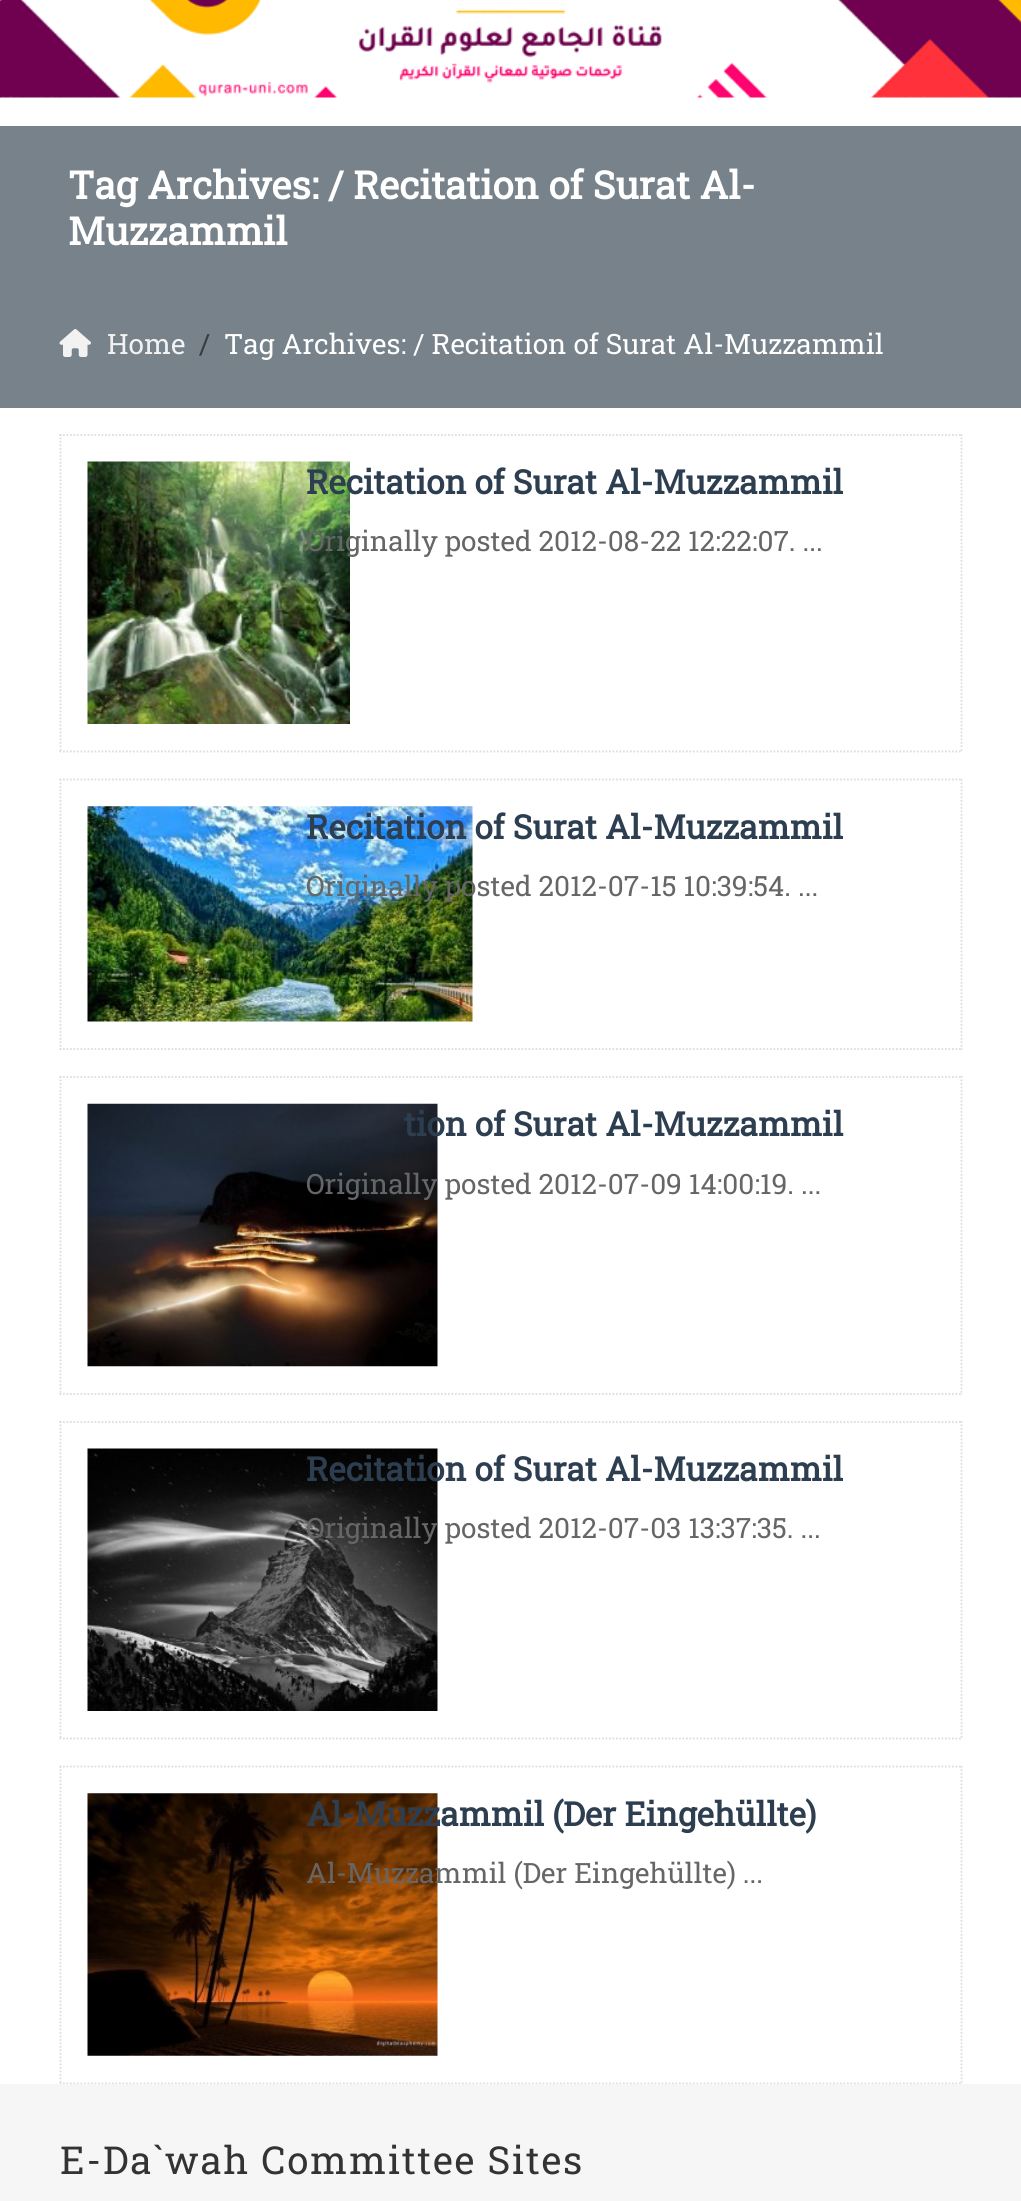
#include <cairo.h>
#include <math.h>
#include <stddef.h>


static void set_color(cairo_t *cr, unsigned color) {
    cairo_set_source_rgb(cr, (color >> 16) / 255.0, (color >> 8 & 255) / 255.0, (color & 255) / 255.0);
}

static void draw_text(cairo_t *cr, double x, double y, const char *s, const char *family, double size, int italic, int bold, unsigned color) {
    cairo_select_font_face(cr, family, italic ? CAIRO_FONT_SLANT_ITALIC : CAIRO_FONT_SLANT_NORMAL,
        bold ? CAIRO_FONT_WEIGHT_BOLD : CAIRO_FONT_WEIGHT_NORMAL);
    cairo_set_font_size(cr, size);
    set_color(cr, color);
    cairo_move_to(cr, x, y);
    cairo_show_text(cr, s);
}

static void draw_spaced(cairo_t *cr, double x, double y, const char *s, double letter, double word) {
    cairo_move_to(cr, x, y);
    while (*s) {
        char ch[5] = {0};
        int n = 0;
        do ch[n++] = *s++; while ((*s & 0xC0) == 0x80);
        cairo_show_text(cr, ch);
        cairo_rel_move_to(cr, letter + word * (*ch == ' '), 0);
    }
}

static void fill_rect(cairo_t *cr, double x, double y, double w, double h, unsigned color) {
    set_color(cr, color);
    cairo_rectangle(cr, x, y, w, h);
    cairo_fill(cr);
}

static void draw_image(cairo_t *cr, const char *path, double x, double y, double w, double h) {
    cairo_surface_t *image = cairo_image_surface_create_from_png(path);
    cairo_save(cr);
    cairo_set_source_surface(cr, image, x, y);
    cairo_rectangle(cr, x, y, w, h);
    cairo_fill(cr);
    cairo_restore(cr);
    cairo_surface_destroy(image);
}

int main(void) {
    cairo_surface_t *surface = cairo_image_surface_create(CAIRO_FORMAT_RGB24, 1021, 2201);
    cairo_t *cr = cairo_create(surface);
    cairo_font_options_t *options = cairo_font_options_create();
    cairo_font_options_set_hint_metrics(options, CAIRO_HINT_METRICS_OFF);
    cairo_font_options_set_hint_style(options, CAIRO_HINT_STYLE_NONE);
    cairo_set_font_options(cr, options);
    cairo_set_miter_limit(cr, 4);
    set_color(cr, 0xFFFFFF);
    cairo_paint(cr);
    draw_image(cr, "assets/img1.png", 0, 0, 1021, 98);
    fill_rect(cr, 0, 126, 1021, 282, 0x77828A);
    draw_text(cr, 68, 199, "Tag Archives: / Recitation of Surat Al-", "Roboto Slab", 38.5, 0, 1, 0xFFFFFF);
    draw_text(cr, 68, 245, "Muzzammil", "Roboto Slab", 38.5, 0, 1, 0xFFFFFF);
    draw_image(cr, "assets/img2.png", 59, 329, 32, 28);
    draw_text(cr, 107, 354, "Home", "Roboto Slab", 28, 0, 0, 0xF2F2F2);
    draw_text(cr, 199, 354, "/", "Roboto Slab", 28, 0, 0, 0x373C41);
    draw_text(cr, 224, 354, "Tag Archives: / Recitation of Surat Al-Muzzammil", "Roboto Slab", 28, 0, 0, 0xFFFFFF);
    cairo_new_path(cr);
    cairo_move_to(cr, 59.5, 435);
    cairo_line_to(cr, 962.5, 435);
    set_color(cr, 0xDDDDDD);
    cairo_set_line_width(cr, 1.8);
    cairo_set_dash(cr, (double[]){1.75, 1.75}, 2, 0);
    cairo_stroke(cr);
    cairo_new_path(cr);
    cairo_move_to(cr, 961.5, 434);
    cairo_line_to(cr, 961.5, 752.5);
    cairo_stroke(cr);
    cairo_new_path(cr);
    cairo_move_to(cr, 59.5, 751.5);
    cairo_line_to(cr, 962.5, 751.5);
    cairo_stroke(cr);
    cairo_new_path(cr);
    cairo_move_to(cr, 60.5, 434);
    cairo_line_to(cr, 60.5, 752.5);
    cairo_stroke(cr);
    draw_image(cr, "assets/img3.png", 87, 461, 263, 263);
    draw_text(cr, 306, 494, "Recitation of Surat Al-Muzzammil", "Roboto Slab", 33.25, 0, 1, 0x2C3E50);
    draw_text(cr, 306, 551, "Originally posted 2012-08-22 12:22:07. ...", "Roboto Slab", 28, 0, 0, 0x666666);
    cairo_new_path(cr);
    cairo_move_to(cr, 59.5, 779.5);
    cairo_line_to(cr, 962.5, 779.5);
    set_color(cr, 0xDDDDDD);
    cairo_stroke(cr);
    cairo_new_path(cr);
    cairo_move_to(cr, 961.5, 779);
    cairo_line_to(cr, 961.5, 1050);
    cairo_stroke(cr);
    cairo_new_path(cr);
    cairo_move_to(cr, 59.5, 1049);
    cairo_line_to(cr, 962.5, 1049);
    cairo_stroke(cr);
    cairo_new_path(cr);
    cairo_move_to(cr, 60.5, 779);
    cairo_line_to(cr, 60.5, 1050);
    cairo_stroke(cr);
    draw_image(cr, "assets/img4.png", 87, 806, 386, 216);
    draw_text(cr, 306, 839, "Recitation of Surat Al-Muzzammil", "Roboto Slab", 33.25, 0, 1, 0x2C3E50);
    draw_text(cr, 306, 896, "Originally posted 2012-07-15 10:39:54. ...", "Roboto Slab", 28, 0, 0, 0x666666);
    cairo_new_path(cr);
    cairo_move_to(cr, 59.5, 1077);
    cairo_line_to(cr, 962.5, 1077);
    set_color(cr, 0xDDDDDD);
    cairo_stroke(cr);
    cairo_new_path(cr);
    cairo_move_to(cr, 961.5, 1076);
    cairo_line_to(cr, 961.5, 1395);
    cairo_stroke(cr);
    cairo_new_path(cr);
    cairo_move_to(cr, 59.5, 1394);
    cairo_line_to(cr, 962.5, 1394);
    cairo_stroke(cr);
    cairo_new_path(cr);
    cairo_move_to(cr, 60.5, 1076);
    cairo_line_to(cr, 60.5, 1395);
    cairo_stroke(cr);
    draw_image(cr, "assets/img5.png", 87, 1103, 351, 264);
    draw_text(cr, 404, 1136, "tion of Surat Al-Muzzammil", "Roboto Slab", 33.25, 0, 1, 0x2C3E50);
    draw_text(cr, 306, 1194, "Originally posted 2012-07-09 14:00:19. ...", "Roboto Slab", 28, 0, 0, 0x666666);
    cairo_new_path(cr);
    cairo_move_to(cr, 59.5, 1422);
    cairo_line_to(cr, 962.5, 1422);
    set_color(cr, 0xDDDDDD);
    cairo_stroke(cr);
    cairo_new_path(cr);
    cairo_move_to(cr, 961.5, 1421);
    cairo_line_to(cr, 961.5, 1739.5);
    cairo_stroke(cr);
    cairo_new_path(cr);
    cairo_move_to(cr, 59.5, 1738.5);
    cairo_line_to(cr, 962.5, 1738.5);
    cairo_stroke(cr);
    cairo_new_path(cr);
    cairo_move_to(cr, 60.5, 1421);
    cairo_line_to(cr, 60.5, 1739.5);
    cairo_stroke(cr);
    draw_image(cr, "assets/img6.png", 87, 1448, 351, 263);
    draw_text(cr, 306, 1481, "Recitation of Surat Al-Muzzammil", "Roboto Slab", 33.25, 0, 1, 0x2C3E50);
    draw_text(cr, 306, 1538, "Originally posted 2012-07-03 13:37:35. ...", "Roboto Slab", 28, 0, 0, 0x666666);
    cairo_new_path(cr);
    cairo_move_to(cr, 59.5, 1766.5);
    cairo_line_to(cr, 962.5, 1766.5);
    set_color(cr, 0xDDDDDD);
    cairo_stroke(cr);
    cairo_new_path(cr);
    cairo_move_to(cr, 961.5, 1766);
    cairo_line_to(cr, 961.5, 2084);
    cairo_stroke(cr);
    cairo_save(cr);
    cairo_rectangle(cr, 39, 434, 945, 1650);
    cairo_clip(cr);
    cairo_new_path(cr);
    cairo_move_to(cr, 59.5, 2083.5);
    cairo_line_to(cr, 962.5, 2083.5);
    cairo_stroke(cr);
    cairo_restore(cr);
    cairo_new_path(cr);
    cairo_move_to(cr, 60.5, 1766);
    cairo_line_to(cr, 60.5, 2084);
    cairo_stroke(cr);
    draw_image(cr, "assets/img7.png", 87, 1793, 351, 263);
    draw_text(cr, 306, 1826, "Al-Muzzammil (Der Eingehüllte)", "Roboto Slab", 33.25, 0, 1, 0x2C3E50);
    draw_text(cr, 306, 1883, "Al-Muzzammil (Der Eingehüllte) ...", "Roboto Slab", 28, 0, 0, 0x666666);
    fill_rect(cr, 0, 2084, 1021, 117, 0xF6F6F6);
    cairo_set_font_size(cr, 38.5);
    set_color(cr, 0x333333);
    draw_spaced(cr, 60, 2174, "E-Da`wah Committee Sites", 1.75, 0);
    cairo_surface_write_to_png(surface, "output.png");
    cairo_font_options_destroy(options);
    cairo_destroy(cr);
    cairo_surface_destroy(surface);
    return 0;
}
